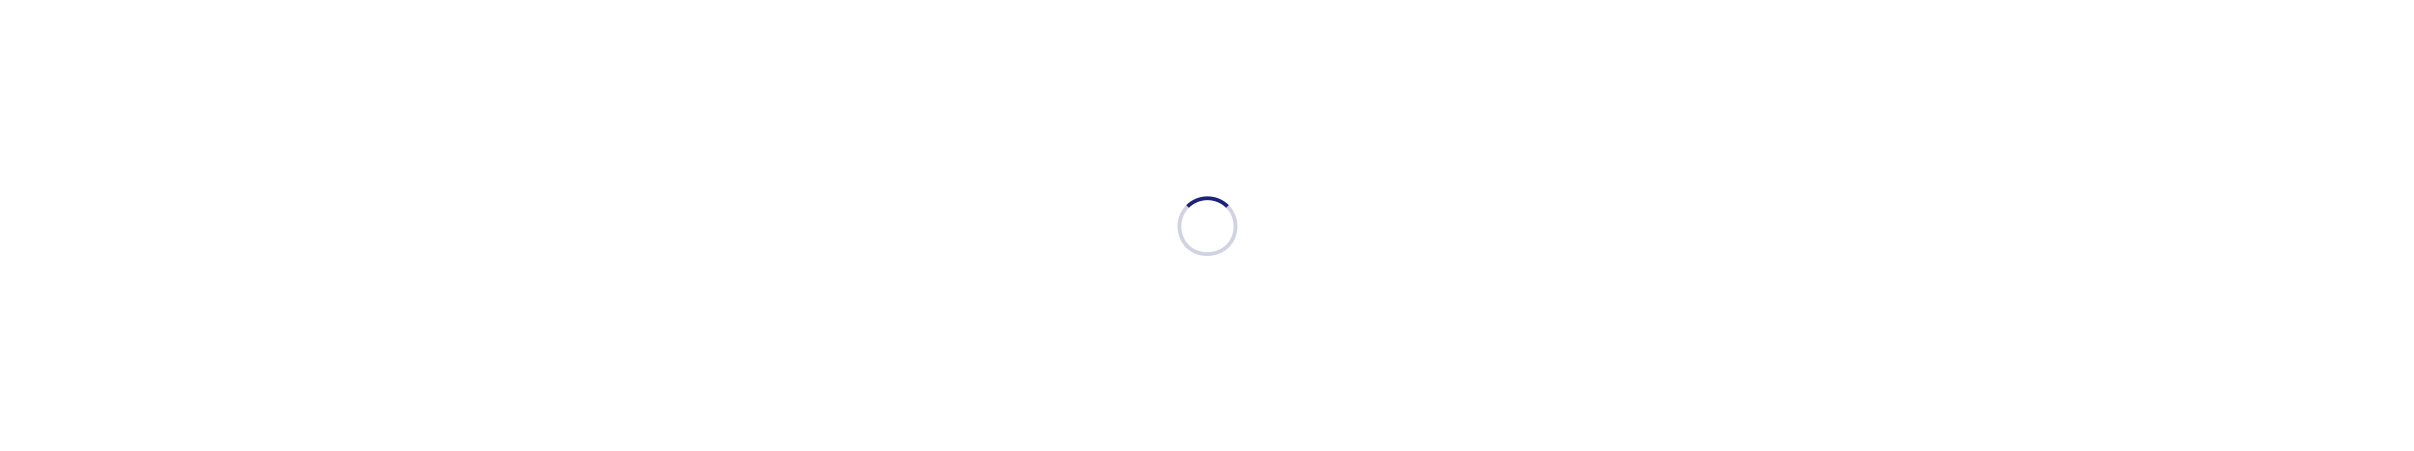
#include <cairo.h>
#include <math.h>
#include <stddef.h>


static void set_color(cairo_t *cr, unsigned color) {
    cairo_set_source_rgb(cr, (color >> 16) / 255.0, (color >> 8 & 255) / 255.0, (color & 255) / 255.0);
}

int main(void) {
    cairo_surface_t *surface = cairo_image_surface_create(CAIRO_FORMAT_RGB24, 2414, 451);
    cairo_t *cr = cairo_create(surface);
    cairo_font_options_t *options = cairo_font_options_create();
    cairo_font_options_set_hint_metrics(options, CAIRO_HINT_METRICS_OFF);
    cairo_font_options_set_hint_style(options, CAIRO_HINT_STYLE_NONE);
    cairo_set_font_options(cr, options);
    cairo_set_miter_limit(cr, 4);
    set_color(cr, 0xFFFFFF);
    cairo_paint(cr);
    cairo_new_path(cr);
    cairo_move_to(cr, 1187.5, 206.5);
    cairo_curve_to(cr, 1198.5, 195.5, 1216.5, 195.5, 1227.5, 206.5);
    set_color(cr, 0x1B2279);
    cairo_set_line_width(cr, 3.8);
    cairo_stroke(cr);
    cairo_new_path(cr);
    cairo_move_to(cr, 1227.5, 206.5);
    cairo_curve_to(cr, 1232.5, 211.5, 1235.5, 219, 1235.5, 226);
    cairo_curve_to(cr, 1235.5, 260, 1186.5, 264.5, 1180, 232);
    cairo_curve_to(cr, 1178, 222.5, 1181, 213, 1187.5, 206.5);
    cairo_set_source_rgba(cr, 0.106, 0.133, 0.475, 0.2);
    cairo_stroke(cr);
    cairo_surface_write_to_png(surface, "output.png");
    cairo_font_options_destroy(options);
    cairo_destroy(cr);
    cairo_surface_destroy(surface);
    return 0;
}
